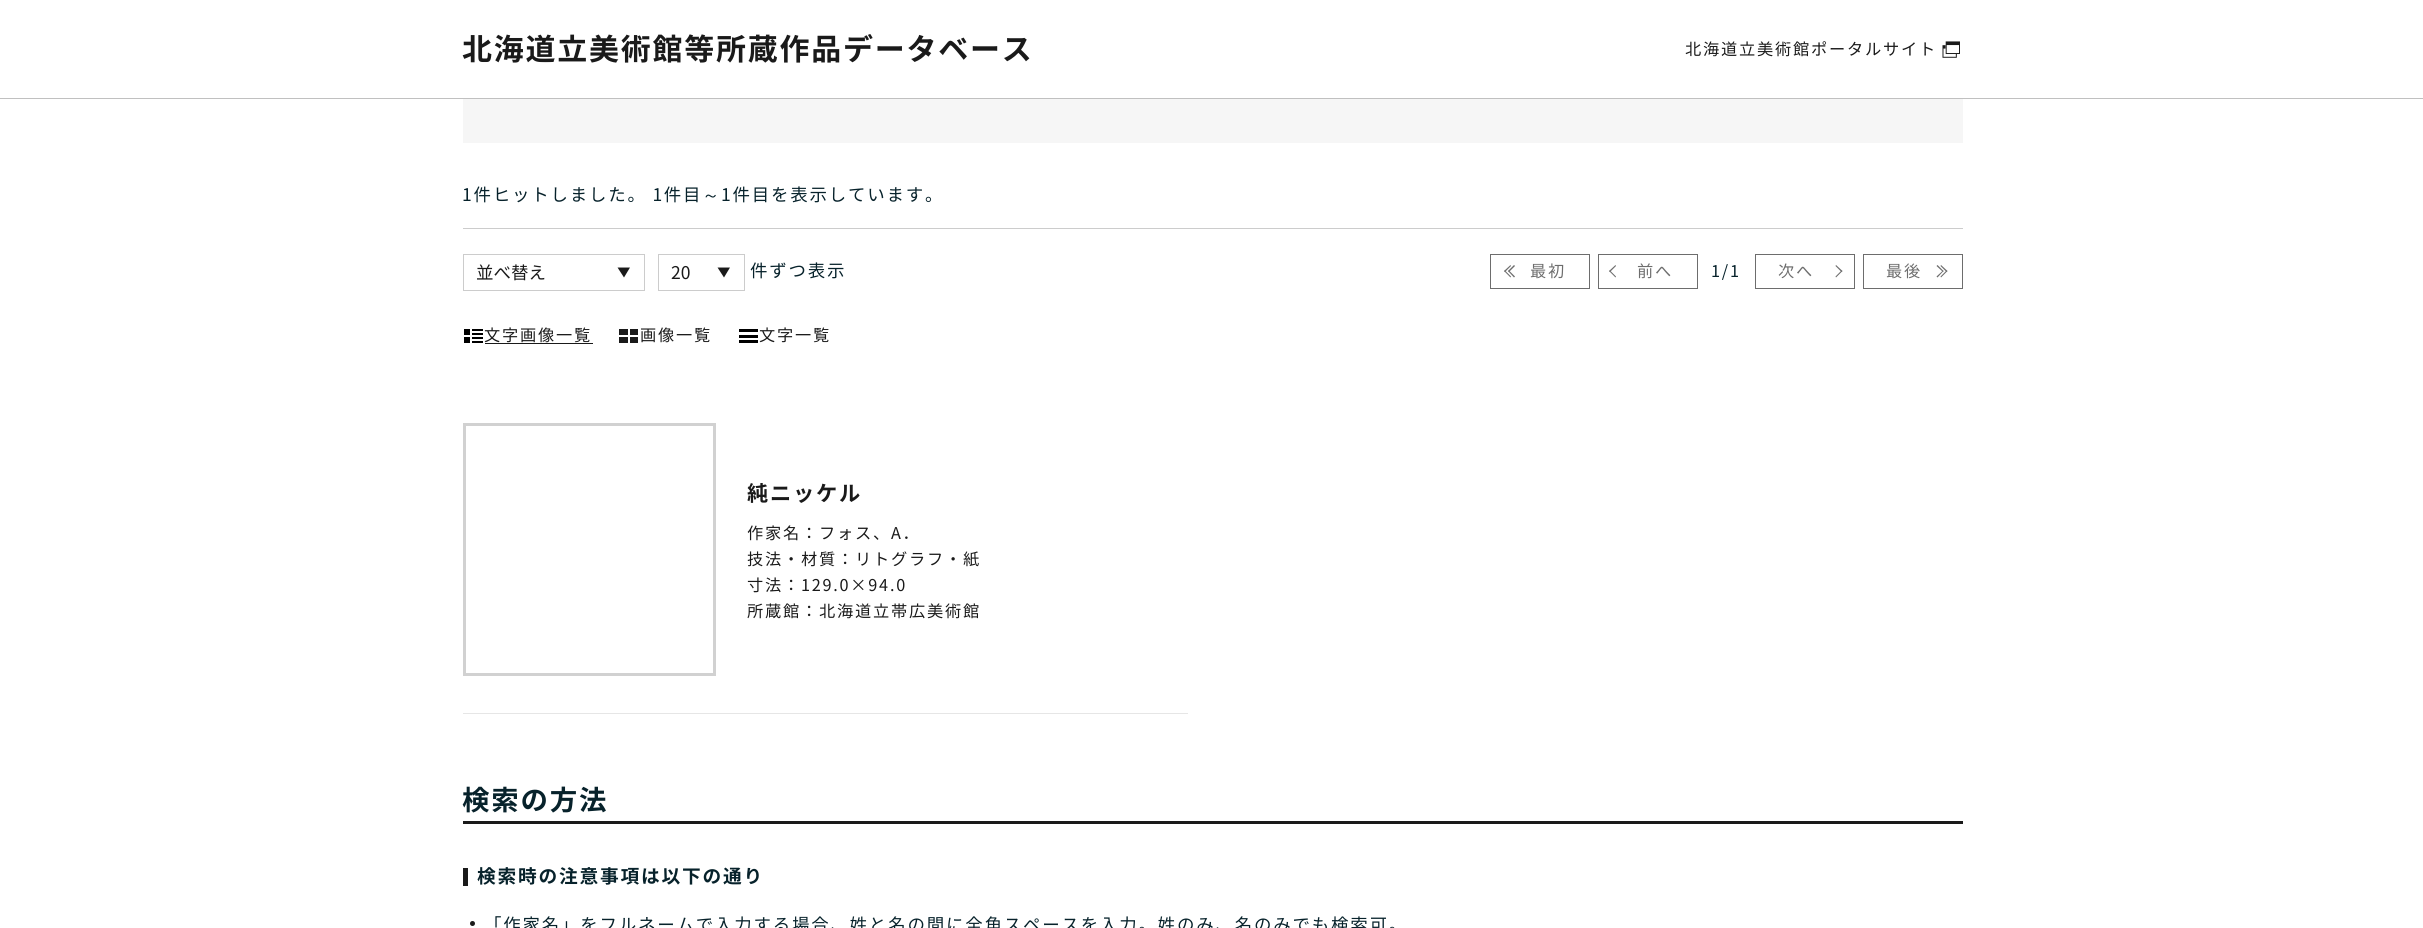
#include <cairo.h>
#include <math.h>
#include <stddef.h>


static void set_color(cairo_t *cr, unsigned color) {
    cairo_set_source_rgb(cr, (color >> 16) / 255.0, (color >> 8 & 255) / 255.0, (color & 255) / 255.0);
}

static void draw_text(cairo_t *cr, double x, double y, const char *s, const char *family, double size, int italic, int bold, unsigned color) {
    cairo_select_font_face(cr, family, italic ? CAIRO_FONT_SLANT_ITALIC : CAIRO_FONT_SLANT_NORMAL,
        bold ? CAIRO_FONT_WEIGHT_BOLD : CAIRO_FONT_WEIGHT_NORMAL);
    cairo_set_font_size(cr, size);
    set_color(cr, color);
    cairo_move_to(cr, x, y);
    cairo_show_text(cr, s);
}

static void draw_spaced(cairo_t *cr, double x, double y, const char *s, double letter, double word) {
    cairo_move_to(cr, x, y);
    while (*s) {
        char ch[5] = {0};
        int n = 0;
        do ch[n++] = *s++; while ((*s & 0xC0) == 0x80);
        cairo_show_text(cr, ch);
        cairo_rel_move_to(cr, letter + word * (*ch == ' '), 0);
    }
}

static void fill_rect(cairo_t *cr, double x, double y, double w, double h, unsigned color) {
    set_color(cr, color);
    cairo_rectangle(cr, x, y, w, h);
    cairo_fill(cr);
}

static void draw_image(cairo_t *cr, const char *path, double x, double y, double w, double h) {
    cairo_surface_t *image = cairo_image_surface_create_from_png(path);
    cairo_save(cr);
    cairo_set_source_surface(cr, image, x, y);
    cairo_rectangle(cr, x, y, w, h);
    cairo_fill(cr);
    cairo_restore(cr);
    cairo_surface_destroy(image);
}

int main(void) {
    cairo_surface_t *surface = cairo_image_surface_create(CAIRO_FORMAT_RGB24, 2423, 928);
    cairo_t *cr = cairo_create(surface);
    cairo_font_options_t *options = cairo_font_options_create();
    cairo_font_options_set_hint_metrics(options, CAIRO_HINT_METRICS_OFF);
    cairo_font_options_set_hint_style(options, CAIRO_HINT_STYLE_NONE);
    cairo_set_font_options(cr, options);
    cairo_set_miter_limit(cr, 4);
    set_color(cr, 0xFFFFFF);
    cairo_paint(cr);
    fill_rect(cr, 0, 98, 2423, 1, 0xC0C0C0);
    cairo_select_font_face(cr, "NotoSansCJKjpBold", CAIRO_FONT_SLANT_NORMAL, CAIRO_FONT_WEIGHT_BOLD);
    cairo_set_font_size(cr, 30);
    set_color(cr, 0x1A1A1A);
    draw_spaced(cr, 462, 60, "北海道立美術館等所蔵作品データベース", 1.75, 0);
    cairo_select_font_face(cr, "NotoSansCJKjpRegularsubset", CAIRO_FONT_SLANT_NORMAL, CAIRO_FONT_WEIGHT_NORMAL);
    cairo_set_font_size(cr, 16.25);
    draw_spaced(cr, 1685, 55, "北海道立美術館ポータルサイト", 1.75, 0);
    draw_image(cr, "assets/img1.png", 1942, 41, 18, 17);
    fill_rect(cr, 463, 99, 1500, 44, 0xF6F6F6);
    fill_rect(cr, 463, 228, 1500, 1, 0xCCCCCC);
    cairo_set_font_size(cr, 17.5);
    set_color(cr, 0x07222B);
    draw_spaced(cr, 462, 201, "1件ヒットしました。 1件目", 1.75, 0);
    cairo_select_font_face(cr, "WenQuanYi Zen Hei Medium", CAIRO_FONT_SLANT_NORMAL, CAIRO_FONT_WEIGHT_NORMAL);
    draw_spaced(cr, 702, 201, "～", 1.75, 0);
    cairo_select_font_face(cr, "NotoSansCJKjpRegularsubset", CAIRO_FONT_SLANT_NORMAL, CAIRO_FONT_WEIGHT_NORMAL);
    draw_spaced(cr, 721, 201, "1件目を表示しています。", 1.75, 0);
    cairo_rectangle(cr, 463.5, 254.5, 181, 36);
    set_color(cr, 0xCCCCCC);
    cairo_set_line_width(cr, 1);
    cairo_stroke(cr);
    draw_text(cr, 476, 279, "並べ替え", "NotoSansCJKjpRegularsubset", 17.5, 0, 0, 0x1A1A1A);
    cairo_new_path(cr);
    cairo_move_to(cr, 617.5, 267.5);
    cairo_line_to(cr, 630, 267.5);
    cairo_line_to(cr, 624, 277.5);
    cairo_close_path(cr);
    cairo_fill(cr);
    cairo_rectangle(cr, 658.5, 254.5, 86, 36);
    set_color(cr, 0xCCCCCC);
    cairo_stroke(cr);
    draw_text(cr, 671, 279, "20", "NotoSansCJKjpRegularsubset", 17.5, 0, 0, 0x1A1A1A);
    cairo_new_path(cr);
    cairo_move_to(cr, 717.5, 267.5);
    cairo_line_to(cr, 730, 267.5);
    cairo_line_to(cr, 724, 277.5);
    cairo_close_path(cr);
    cairo_fill(cr);
    set_color(cr, 0x07222B);
    draw_spaced(cr, 750, 277, "件ずつ表示", 1.75, 0);
    cairo_rectangle(cr, 1490.5, 254.5, 99, 34);
    set_color(cr, 0x6D6D6D);
    cairo_stroke(cr);
    cairo_new_path(cr);
    cairo_move_to(cr, 1505, 270.5);
    cairo_line_to(cr, 1511, 276.5);
    cairo_line_to(cr, 1510.5, 277.5);
    cairo_line_to(cr, 1504, 271);
    cairo_close_path(cr);
    cairo_fill(cr);
    cairo_new_path(cr);
    cairo_move_to(cr, 1510.5, 265);
    cairo_line_to(cr, 1511, 266);
    cairo_line_to(cr, 1505, 272);
    cairo_line_to(cr, 1504, 271);
    cairo_close_path(cr);
    cairo_fill(cr);
    cairo_new_path(cr);
    cairo_move_to(cr, 1509, 270.5);
    cairo_line_to(cr, 1515, 276.5);
    cairo_line_to(cr, 1514, 277.5);
    cairo_line_to(cr, 1508, 271);
    cairo_close_path(cr);
    cairo_fill(cr);
    cairo_new_path(cr);
    cairo_move_to(cr, 1514, 265);
    cairo_line_to(cr, 1515, 266);
    cairo_line_to(cr, 1509, 272);
    cairo_line_to(cr, 1508, 271);
    cairo_close_path(cr);
    cairo_fill(cr);
    cairo_set_font_size(cr, 16.25);
    draw_spaced(cr, 1530, 277, "最初", 1.75, 0);
    cairo_rectangle(cr, 1598.5, 254.5, 99, 34);
    cairo_stroke(cr);
    cairo_new_path(cr);
    cairo_move_to(cr, 1610, 270.5);
    cairo_line_to(cr, 1616, 276.5);
    cairo_line_to(cr, 1615.5, 277.5);
    cairo_line_to(cr, 1609, 271);
    cairo_close_path(cr);
    cairo_fill(cr);
    cairo_new_path(cr);
    cairo_move_to(cr, 1615.5, 265);
    cairo_line_to(cr, 1616, 266);
    cairo_line_to(cr, 1610, 272);
    cairo_line_to(cr, 1609, 271);
    cairo_close_path(cr);
    cairo_fill(cr);
    draw_spaced(cr, 1637, 277, "前へ", 1.75, 0);
    set_color(cr, 0x07222B);
    draw_spaced(cr, 1711, 277, "1/1", 1.75, 0);
    cairo_rectangle(cr, 1755.5, 254.5, 99, 34);
    set_color(cr, 0x6D6D6D);
    cairo_stroke(cr);
    draw_spaced(cr, 1778, 277, "次へ", 1.75, 0);
    cairo_new_path(cr);
    cairo_move_to(cr, 1836, 265);
    cairo_line_to(cr, 1842.5, 271);
    cairo_line_to(cr, 1841.5, 272);
    cairo_line_to(cr, 1835.5, 266);
    cairo_close_path(cr);
    cairo_fill(cr);
    cairo_new_path(cr);
    cairo_move_to(cr, 1841.5, 270.5);
    cairo_line_to(cr, 1842.5, 271);
    cairo_line_to(cr, 1836, 277.5);
    cairo_line_to(cr, 1835.5, 276.5);
    cairo_close_path(cr);
    cairo_fill(cr);
    cairo_rectangle(cr, 1863.5, 254.5, 99, 34);
    cairo_stroke(cr);
    draw_spaced(cr, 1886, 277, "最後", 1.75, 0);
    cairo_new_path(cr);
    cairo_move_to(cr, 1941, 265);
    cairo_line_to(cr, 1947.5, 271);
    cairo_line_to(cr, 1946.5, 272);
    cairo_line_to(cr, 1940.5, 266);
    cairo_close_path(cr);
    cairo_fill(cr);
    cairo_new_path(cr);
    cairo_move_to(cr, 1946.5, 270.5);
    cairo_line_to(cr, 1947.5, 271);
    cairo_line_to(cr, 1941, 277.5);
    cairo_line_to(cr, 1940.5, 276.5);
    cairo_close_path(cr);
    cairo_fill(cr);
    cairo_new_path(cr);
    cairo_move_to(cr, 1937.5, 265);
    cairo_line_to(cr, 1943.5, 271);
    cairo_line_to(cr, 1943, 272);
    cairo_line_to(cr, 1936.5, 266);
    cairo_close_path(cr);
    cairo_fill(cr);
    cairo_new_path(cr);
    cairo_move_to(cr, 1943, 270.5);
    cairo_line_to(cr, 1943.5, 271);
    cairo_line_to(cr, 1937.5, 277.5);
    cairo_line_to(cr, 1936.5, 276.5);
    cairo_close_path(cr);
    cairo_fill(cr);
    draw_image(cr, "assets/img2.png", 464, 329, 19, 14);
    set_color(cr, 0x1A1A1A);
    draw_spaced(cr, 484, 341, "文字画像一覧", 1.75, 0);
    fill_rect(cr, 485, 343, 108, 1, 0x1A1A1A);
    fill_rect(cr, 619, 329, 9, 6, 0x1A1A1A);
    fill_rect(cr, 630, 329, 8, 6, 0x1A1A1A);
    fill_rect(cr, 619, 337, 9, 6, 0x1A1A1A);
    fill_rect(cr, 630, 337, 8, 6, 0x1A1A1A);
    draw_spaced(cr, 640, 341, "画像一覧", 1.75, 0);
    fill_rect(cr, 739, 329, 19, 3, 0x000000);
    fill_rect(cr, 739, 335, 19, 3, 0x000000);
    fill_rect(cr, 739, 340, 19, 3, 0x000000);
    set_color(cr, 0x1A1A1A);
    draw_spaced(cr, 759, 341, "文字一覧", 1.75, 0);
    cairo_rectangle(cr, 464.5, 424.5, 250, 250);
    set_color(cr, 0xD1D1D1);
    cairo_set_line_width(cr, 3);
    cairo_stroke(cr);
    cairo_select_font_face(cr, "NotoSansCJKjpBold", CAIRO_FONT_SLANT_NORMAL, CAIRO_FONT_WEIGHT_BOLD);
    cairo_set_font_size(cr, 21.25);
    set_color(cr, 0x1A1A1A);
    draw_spaced(cr, 747, 501, "純ニッケル", 1.75, 0);
    cairo_select_font_face(cr, "NotoSansCJKjpRegularsubset", CAIRO_FONT_SLANT_NORMAL, CAIRO_FONT_WEIGHT_NORMAL);
    cairo_set_font_size(cr, 16.25);
    draw_spaced(cr, 747, 539, "作家名：フォス、A．", 1.75, 0);
    draw_spaced(cr, 747, 565, "技法・材質：リトグラフ・紙", 1.75, 0);
    draw_spaced(cr, 747, 591, "寸法：129.0×94.0", 1.75, 0);
    draw_spaced(cr, 747, 617, "所蔵館：北海道立帯広美術館", 1.75, 0);
    fill_rect(cr, 463, 713, 725, 1, 0xE6E6E6);
    fill_rect(cr, 463, 821, 1500, 3, 0x1A1A1A);
    cairo_select_font_face(cr, "NotoSansCJKjpBold", CAIRO_FONT_SLANT_NORMAL, CAIRO_FONT_WEIGHT_BOLD);
    cairo_set_font_size(cr, 27.5);
    set_color(cr, 0x07222B);
    draw_spaced(cr, 462, 810, "検索の方法", 1.75, 0);
    fill_rect(cr, 463, 868, 5, 18, 0x1A1A1A);
    cairo_set_font_size(cr, 18.75);
    set_color(cr, 0x07222B);
    draw_spaced(cr, 477, 883, "検索時の注意事項は以下の通り", 1.75, 0);
    set_color(cr, 0x1A1A1A);
    cairo_new_path(cr);
    cairo_arc(cr, 472.5, 923.5, 2.5, 0, 2 * M_PI);
    cairo_fill(cr);
    cairo_select_font_face(cr, "NotoSansCJKjpRegularsubset", CAIRO_FONT_SLANT_NORMAL, CAIRO_FONT_WEIGHT_NORMAL);
    cairo_set_font_size(cr, 17.5);
    set_color(cr, 0x07222B);
    draw_spaced(cr, 484, 931, "「作家名」をフルネームで入力する場合、姓と名の間に全角スペースを入力。姓のみ、名のみでも検索可。", 1.75, 0);
    cairo_surface_write_to_png(surface, "output.png");
    cairo_font_options_destroy(options);
    cairo_destroy(cr);
    cairo_surface_destroy(surface);
    return 0;
}
